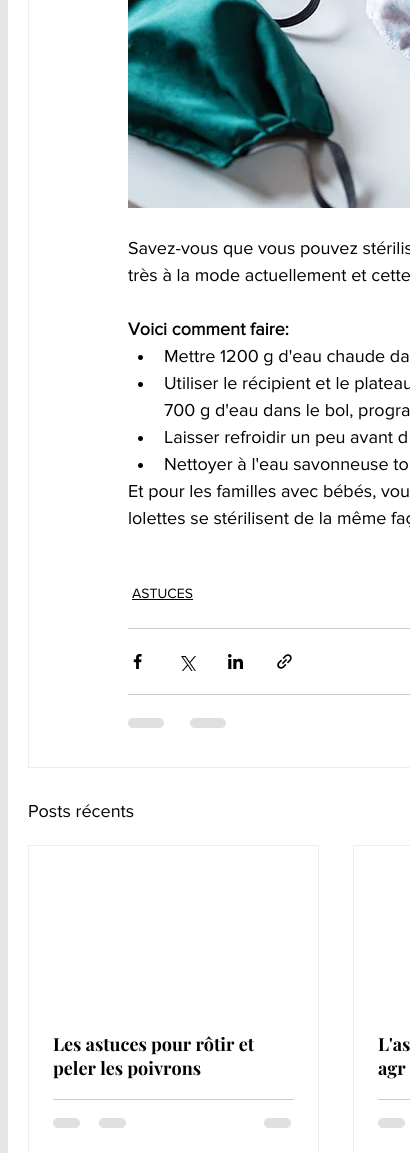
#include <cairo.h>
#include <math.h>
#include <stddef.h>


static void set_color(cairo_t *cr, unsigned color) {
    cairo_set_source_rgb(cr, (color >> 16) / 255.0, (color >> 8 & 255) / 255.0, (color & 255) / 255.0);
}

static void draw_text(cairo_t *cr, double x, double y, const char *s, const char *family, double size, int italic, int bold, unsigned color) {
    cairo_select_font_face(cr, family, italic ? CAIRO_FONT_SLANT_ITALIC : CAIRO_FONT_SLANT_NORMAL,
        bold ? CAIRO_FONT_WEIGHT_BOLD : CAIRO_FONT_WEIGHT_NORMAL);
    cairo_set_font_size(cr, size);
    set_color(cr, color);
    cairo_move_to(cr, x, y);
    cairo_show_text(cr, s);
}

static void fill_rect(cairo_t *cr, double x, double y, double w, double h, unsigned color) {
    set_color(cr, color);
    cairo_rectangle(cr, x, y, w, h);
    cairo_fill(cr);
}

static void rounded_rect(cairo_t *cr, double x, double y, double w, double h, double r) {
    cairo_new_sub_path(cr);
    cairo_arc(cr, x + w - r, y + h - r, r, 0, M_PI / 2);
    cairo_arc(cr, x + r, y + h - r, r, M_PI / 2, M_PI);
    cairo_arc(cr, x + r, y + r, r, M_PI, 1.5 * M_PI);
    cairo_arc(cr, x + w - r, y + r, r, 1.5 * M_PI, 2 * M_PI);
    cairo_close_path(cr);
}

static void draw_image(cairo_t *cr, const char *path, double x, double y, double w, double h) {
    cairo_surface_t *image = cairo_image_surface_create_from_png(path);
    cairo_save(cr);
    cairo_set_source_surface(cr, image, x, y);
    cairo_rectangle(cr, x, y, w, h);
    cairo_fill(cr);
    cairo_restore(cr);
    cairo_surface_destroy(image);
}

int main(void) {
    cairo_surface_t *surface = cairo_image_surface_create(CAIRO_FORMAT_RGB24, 410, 1153);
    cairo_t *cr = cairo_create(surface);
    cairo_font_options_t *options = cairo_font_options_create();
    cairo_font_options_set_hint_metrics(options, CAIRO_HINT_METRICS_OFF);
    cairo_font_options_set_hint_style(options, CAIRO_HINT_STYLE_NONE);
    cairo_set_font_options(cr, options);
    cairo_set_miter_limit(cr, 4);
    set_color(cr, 0xE8E6E6);
    cairo_paint(cr);
    fill_rect(cr, 8, 0, 402, 1153, 0xFFFFFF);
    cairo_rectangle(cr, 28.5, -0.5, 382, 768);
    set_color(cr, 0xEEECEC);
    cairo_set_line_width(cr, 1);
    cairo_stroke(cr);
    draw_image(cr, "assets/img1.png", 128, 0, 282, 208);
    draw_text(cr, 128, 254, "Savez-vous que vous pouvez stérilis", "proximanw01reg", 18, 0, 0, 0x000000);
    draw_text(cr, 128, 281, "très à la mode actuellement et cette", "proximanw01reg", 18, 0, 0, 0x000000);
    draw_text(cr, 128, 335, "Voici comment faire:", "proximanw01reg", 18, 0, 1, 0x000000);
    cairo_new_path(cr);
    cairo_arc(cr, 140.5, 357.5, 2.5, 0, 2 * M_PI);
    cairo_fill(cr);
    draw_text(cr, 164, 362, "Mettre 1200 g d'eau chaude da", "proximanw01reg", 18, 0, 0, 0x000000);
    cairo_new_path(cr);
    cairo_arc(cr, 140.5, 384.5, 2.5, 0, 2 * M_PI);
    cairo_fill(cr);
    draw_text(cr, 164, 389, "Utiliser le récipient et le plateau", "proximanw01reg", 18, 0, 0, 0x000000);
    draw_text(cr, 164, 416, "700 g d'eau dans le bol, progra", "proximanw01reg", 18, 0, 0, 0x000000);
    cairo_new_path(cr);
    cairo_arc(cr, 140.5, 438.5, 2.5, 0, 2 * M_PI);
    cairo_fill(cr);
    draw_text(cr, 164, 443, "Laisser refroidir un peu avant d", "proximanw01reg", 18, 0, 0, 0x000000);
    cairo_new_path(cr);
    cairo_arc(cr, 140.5, 465.5, 2.5, 0, 2 * M_PI);
    cairo_fill(cr);
    draw_text(cr, 164, 470, "Nettoyer à l'eau savonneuse to", "proximanw01reg", 18, 0, 0, 0x000000);
    draw_text(cr, 128, 497, "Et pour les familles avec bébés, vou", "proximanw01reg", 18, 0, 0, 0x000000);
    draw_text(cr, 128, 524, "lolettes se stérilisent de la même faç", "proximanw01reg", 18, 0, 0, 0x000000);
    draw_text(cr, 132, 598, "ASTUCES", "proximanw01reg", 14, 0, 0, 0x000000);
    fill_rect(cr, 132, 599, 61, 1, 0x000000);
    fill_rect(cr, 128, 628, 282, 1, 0xCCCCCC);
    draw_image(cr, "assets/img2.png", 133, 654, 9, 15);
    draw_image(cr, "assets/img3.png", 181, 656, 15, 15);
    draw_image(cr, "assets/img4.png", 228, 654, 15, 15);
    draw_image(cr, "assets/img5.png", 277, 654, 15, 15);
    fill_rect(cr, 128, 694, 282, 1, 0xCCCCCC);
    set_color(cr, 0xE0E0E0);
    rounded_rect(cr, 128, 718, 36, 10, 5);
    cairo_fill(cr);
    rounded_rect(cr, 190, 718, 36, 10, 5);
    cairo_fill(cr);
    draw_text(cr, 28, 817, "Posts récents", "proximanw01reg", 18, 0, 0, 0x000000);
    cairo_rectangle(cr, 28.5, 845.5, 290, 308);
    set_color(cr, 0xEEECEC);
    cairo_stroke(cr);
    draw_text(cr, 53, 1051, "Les astuces pour rôtir et", "Playfair Display", 18, 0, 1, 0x000000);
    draw_text(cr, 53, 1075, "peler les poivrons", "Playfair Display", 18, 0, 1, 0x000000);
    fill_rect(cr, 53, 1099, 241, 1, 0xCCCCCC);
    set_color(cr, 0xE0E0E0);
    rounded_rect(cr, 53, 1118, 27, 10, 5);
    cairo_fill(cr);
    rounded_rect(cr, 99, 1118, 27, 10, 5);
    cairo_fill(cr);
    rounded_rect(cr, 264, 1118, 27, 10, 5);
    cairo_fill(cr);
    cairo_rectangle(cr, 353.5, 845.5, 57, 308);
    set_color(cr, 0xEEECEC);
    cairo_stroke(cr);
    draw_text(cr, 378, 1051, "L'as", "Playfair Display", 18, 0, 1, 0x000000);
    draw_text(cr, 378, 1075, "agr", "Playfair Display", 18, 0, 1, 0x000000);
    fill_rect(cr, 378, 1099, 32, 1, 0xCCCCCC);
    set_color(cr, 0xE0E0E0);
    rounded_rect(cr, 378, 1118, 27, 10, 5);
    cairo_fill(cr);
    cairo_surface_write_to_png(surface, "output.png");
    cairo_font_options_destroy(options);
    cairo_destroy(cr);
    cairo_surface_destroy(surface);
    return 0;
}
